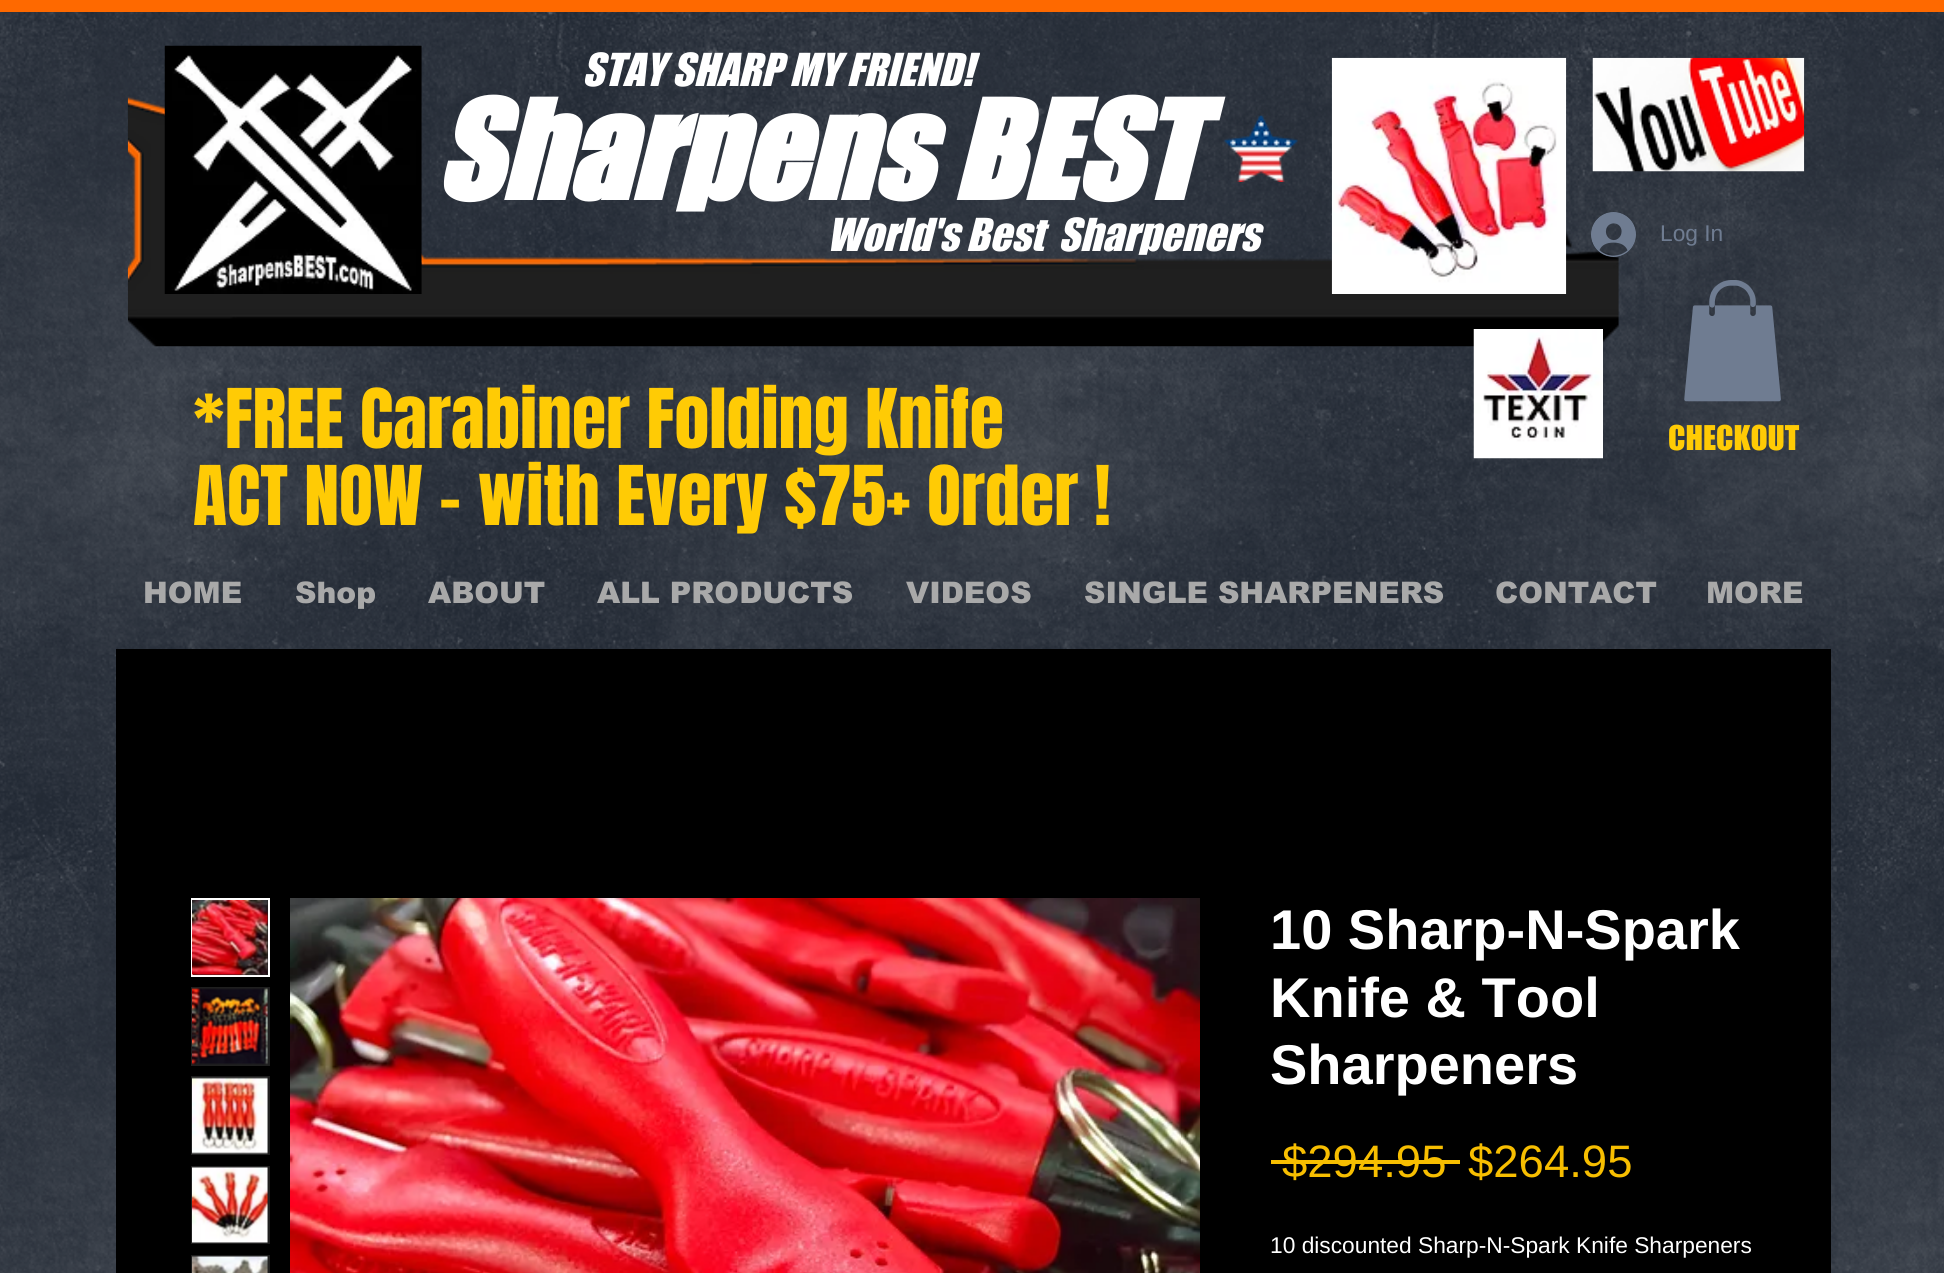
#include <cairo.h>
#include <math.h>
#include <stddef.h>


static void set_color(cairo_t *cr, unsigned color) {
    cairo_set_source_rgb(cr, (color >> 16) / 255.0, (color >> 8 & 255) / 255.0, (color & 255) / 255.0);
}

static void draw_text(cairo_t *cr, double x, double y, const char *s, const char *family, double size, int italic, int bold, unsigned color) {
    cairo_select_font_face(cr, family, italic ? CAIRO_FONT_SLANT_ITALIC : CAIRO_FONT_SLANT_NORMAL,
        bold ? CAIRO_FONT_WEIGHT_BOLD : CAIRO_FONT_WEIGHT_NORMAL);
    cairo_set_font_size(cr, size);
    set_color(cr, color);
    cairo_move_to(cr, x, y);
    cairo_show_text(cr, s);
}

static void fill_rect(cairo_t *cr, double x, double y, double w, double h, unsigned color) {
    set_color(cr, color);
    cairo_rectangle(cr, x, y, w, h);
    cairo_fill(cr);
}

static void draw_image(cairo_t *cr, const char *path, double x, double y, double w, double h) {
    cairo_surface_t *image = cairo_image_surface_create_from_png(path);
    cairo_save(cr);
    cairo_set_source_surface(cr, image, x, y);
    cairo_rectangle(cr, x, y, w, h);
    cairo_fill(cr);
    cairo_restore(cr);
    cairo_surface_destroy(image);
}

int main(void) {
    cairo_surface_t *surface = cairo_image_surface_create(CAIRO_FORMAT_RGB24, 1944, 1273);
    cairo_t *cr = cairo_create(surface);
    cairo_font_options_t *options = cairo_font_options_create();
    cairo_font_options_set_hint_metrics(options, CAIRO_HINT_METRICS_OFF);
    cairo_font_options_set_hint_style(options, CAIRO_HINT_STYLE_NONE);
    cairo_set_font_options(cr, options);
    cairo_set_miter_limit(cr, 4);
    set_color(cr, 0x212833);
    cairo_paint(cr);
    draw_image(cr, "assets/img1.png", 0, 12, 1944, 1261);
    fill_rect(cr, 0, 0, 1944, 12, 0xFE6900);
    draw_image(cr, "assets/img5.png", 127, 96, 1492, 251);
    draw_image(cr, "assets/img2.png", 164, 45, 258, 249);
    draw_text(cr, 582, 86, "STAY SHARP MY FRIEND!", "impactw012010", 42, 1, 0, 0xFFFFFF);
    draw_image(cr, "assets/img3.png", 1331, 57, 236, 237);
    draw_image(cr, "assets/img4.png", 1592, 57, 213, 115);
    draw_text(cr, 435, 200, "Sharpens BEST", "impactw012010", 126, 1, 1, 0xFFFFFF);
    draw_image(cr, "assets/img6.png", 1223, 115, 75, 67);
    draw_text(cr, 827, 251, "World's Best  Sharpeners", "impactw012010", 42, 1, 0, 0xFFFFFF);
    draw_image(cr, "assets/img7.png", 1591, 212, 45, 45);
    draw_text(cr, 1660, 241, "Log In", "Liberation Sans", 22.75, 0, 0, 0x6F7C91);
    draw_text(cr, 193, 448, "*FREE Carabiner Folding Knife", "Anton", 70, 0, 0, 0xFFCB05);
    draw_text(cr, 193, 525, "ACT NOW - with Every $75+ Order !", "Anton", 70, 0, 0, 0xFFCB05);
    draw_image(cr, "assets/img8.png", 1473, 329, 130, 130);
    draw_image(cr, "assets/img9.png", 1684, 280, 97, 122);
    draw_text(cr, 1668, 450, "CHECKOUT", "impactw012010", 31.5, 0, 0, 0xFFCB05);
    draw_text(cr, 143, 603, "HOME", "arial Black", 29.75, 0, 0, 0xA9A9A9);
    draw_text(cr, 295, 603, "Shop", "arial Black", 29.75, 0, 0, 0xA9A9A9);
    draw_text(cr, 428, 603, "ABOUT", "arial Black", 29.75, 0, 0, 0xA9A9A9);
    draw_text(cr, 597, 603, "ALL PRODUCTS", "arial Black", 29.75, 0, 0, 0xA9A9A9);
    draw_text(cr, 906, 603, "VIDEOS", "arial Black", 29.75, 0, 0, 0xA9A9A9);
    draw_text(cr, 1084, 603, "SINGLE SHARPENERS", "arial Black", 29.75, 0, 0, 0xA9A9A9);
    draw_text(cr, 1495, 603, "CONTACT", "arial Black", 29.75, 0, 0, 0xA9A9A9);
    draw_text(cr, 1706, 603, "MORE", "arial Black", 29.75, 0, 0, 0xA9A9A9);
    fill_rect(cr, 116, 649, 1715, 624, 0x000000);
    set_color(cr, 0x1F1F1F);
    cairo_rectangle(cr, 192, 899, 77, 77);
    cairo_fill_preserve(cr);
    set_color(cr, 0xFFFFFF);
    cairo_stroke(cr);
    draw_image(cr, "assets/img10.png", 192, 900, 76, 76);
    fill_rect(cr, 191, 987, 79, 79, 0x1F1F1F);
    draw_image(cr, "assets/img11.png", 192, 988, 76, 77);
    fill_rect(cr, 191, 1076, 79, 79, 0x1F1F1F);
    draw_image(cr, "assets/img12.png", 192, 1077, 76, 77);
    fill_rect(cr, 191, 1166, 79, 78, 0x1F1F1F);
    draw_image(cr, "assets/img13.png", 192, 1166, 76, 77);
    fill_rect(cr, 191, 1255, 79, 18, 0x1F1F1F);
    draw_image(cr, "assets/img14.png", 192, 1256, 76, 17);
    draw_image(cr, "assets/img15.png", 290, 898, 910, 375);
    draw_text(cr, 1270, 949, "10 Sharp-N-Spark", "Liberation Sans", 56, 0, 1, 0xFFFFFF);
    draw_text(cr, 1270, 1017, "Knife & Tool", "Liberation Sans", 56, 0, 1, 0xFFFFFF);
    draw_text(cr, 1270, 1084, "Sharpeners", "Liberation Sans", 56, 0, 1, 0xFFFFFF);
    draw_text(cr, 1282, 1177, "$294.95", "Liberation Sans", 45.5, 0, 0, 0xF7BE00);
    fill_rect(cr, 1271, 1160, 189, 4, 0xF7BE00);
    draw_text(cr, 1468, 1177, "$264.95", "Liberation Sans", 45.5, 0, 0, 0xF7BE00);
    draw_text(cr, 1270, 1253, "10 discounted Sharp-N-Spark Knife Sharpeners", "Liberation Sans", 22.75, 0, 0, 0xFFFFFF);
    cairo_surface_write_to_png(surface, "output.png");
    cairo_font_options_destroy(options);
    cairo_destroy(cr);
    cairo_surface_destroy(surface);
    return 0;
}
